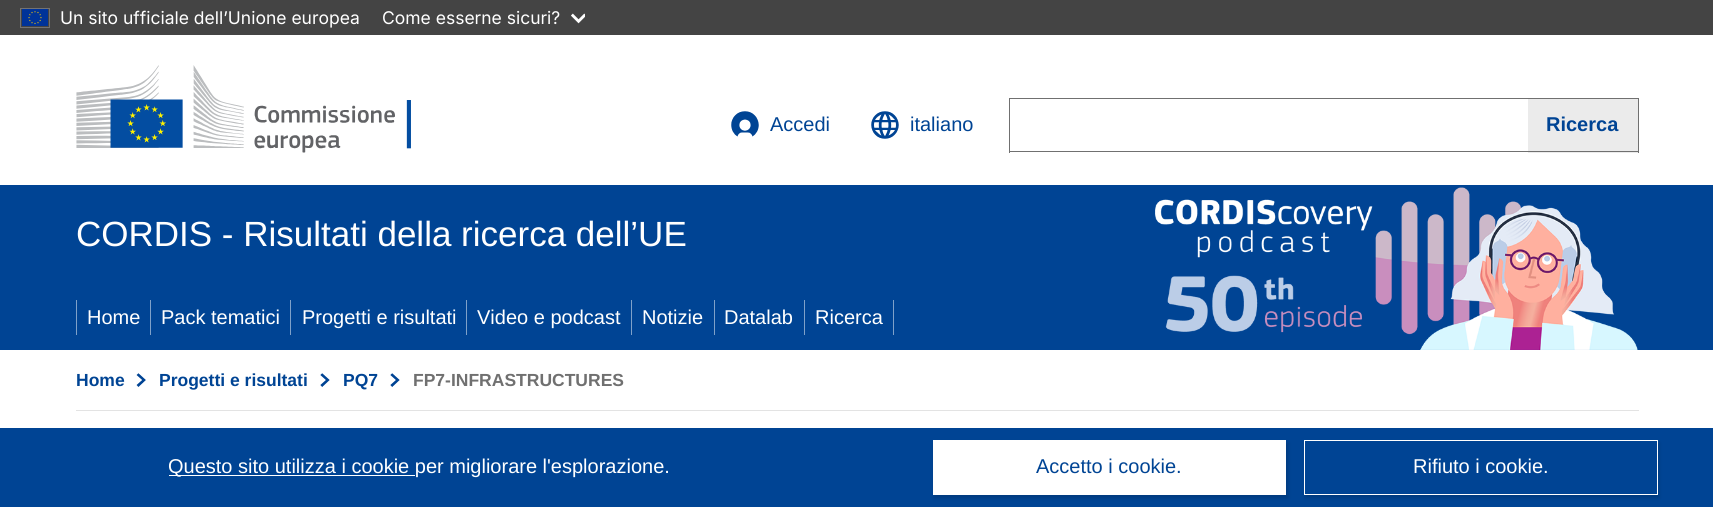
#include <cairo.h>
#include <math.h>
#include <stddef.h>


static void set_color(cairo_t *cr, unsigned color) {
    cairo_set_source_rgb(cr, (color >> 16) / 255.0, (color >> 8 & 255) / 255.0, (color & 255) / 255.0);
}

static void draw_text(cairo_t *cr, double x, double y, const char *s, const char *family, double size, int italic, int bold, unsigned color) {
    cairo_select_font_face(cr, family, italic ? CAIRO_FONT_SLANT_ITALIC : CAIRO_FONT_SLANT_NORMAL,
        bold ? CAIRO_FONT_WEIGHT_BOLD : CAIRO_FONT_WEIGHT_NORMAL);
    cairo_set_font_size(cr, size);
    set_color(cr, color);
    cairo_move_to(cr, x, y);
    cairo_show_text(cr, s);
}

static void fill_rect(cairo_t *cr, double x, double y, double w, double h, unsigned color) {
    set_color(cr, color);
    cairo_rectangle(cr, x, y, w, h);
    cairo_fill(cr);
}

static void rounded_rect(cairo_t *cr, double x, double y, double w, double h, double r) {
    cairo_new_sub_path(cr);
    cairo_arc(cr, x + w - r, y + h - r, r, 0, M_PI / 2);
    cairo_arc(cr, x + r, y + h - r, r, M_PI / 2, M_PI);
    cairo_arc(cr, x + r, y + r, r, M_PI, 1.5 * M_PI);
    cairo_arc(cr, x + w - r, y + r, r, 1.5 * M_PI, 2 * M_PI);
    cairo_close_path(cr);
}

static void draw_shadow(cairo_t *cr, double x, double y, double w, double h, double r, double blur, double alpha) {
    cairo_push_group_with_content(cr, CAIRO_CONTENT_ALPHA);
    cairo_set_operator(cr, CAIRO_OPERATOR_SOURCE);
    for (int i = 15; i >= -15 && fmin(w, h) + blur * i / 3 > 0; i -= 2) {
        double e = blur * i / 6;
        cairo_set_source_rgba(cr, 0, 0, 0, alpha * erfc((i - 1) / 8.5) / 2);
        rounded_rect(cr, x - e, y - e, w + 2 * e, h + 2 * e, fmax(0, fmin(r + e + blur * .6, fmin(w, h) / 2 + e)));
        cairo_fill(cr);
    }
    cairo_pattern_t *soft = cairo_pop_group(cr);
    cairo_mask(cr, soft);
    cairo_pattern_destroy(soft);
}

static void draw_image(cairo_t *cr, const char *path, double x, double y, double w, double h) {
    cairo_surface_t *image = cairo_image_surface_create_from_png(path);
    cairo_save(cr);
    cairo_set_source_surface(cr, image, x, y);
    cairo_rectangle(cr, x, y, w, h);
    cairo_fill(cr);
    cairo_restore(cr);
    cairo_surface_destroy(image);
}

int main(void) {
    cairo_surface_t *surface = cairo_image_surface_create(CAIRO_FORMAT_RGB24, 1713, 507);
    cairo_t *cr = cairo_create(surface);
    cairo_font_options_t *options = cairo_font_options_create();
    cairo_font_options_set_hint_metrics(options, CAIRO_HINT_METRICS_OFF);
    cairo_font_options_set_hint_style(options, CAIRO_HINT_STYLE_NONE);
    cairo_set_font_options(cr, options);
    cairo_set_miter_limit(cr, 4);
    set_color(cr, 0xFFFFFF);
    cairo_paint(cr);
    fill_rect(cr, 0, 0, 1713, 35, 0x444444);
    cairo_rectangle(cr, 20.5, 8.5, 29, 19);
    set_color(cr, 0x737373);
    cairo_set_line_width(cr, 1);
    cairo_stroke(cr);
    draw_image(cr, "assets/img1.png", 22, 9, 26, 17);
    draw_text(cr, 60, 24, "Un sito ufficiale dell’Unione europea", "Inter", 17.5, 0, 0, 0xFFFFFF);
    draw_text(cr, 382, 24, "Come esserne sicuri?", "Inter", 17.5, 0, 0, 0xFFFFFF);
    draw_image(cr, "assets/img2.png", 571, 13, 14, 11);
    draw_image(cr, "assets/img3.png", 76, 65, 335, 88);
    draw_image(cr, "assets/img4.png", 731, 111, 28, 26);
    draw_text(cr, 770, 131, "Accedi", "Liberation Sans", 20, 0, 0, 0x004494);
    draw_image(cr, "assets/img5.png", 871, 111, 28, 28);
    draw_text(cr, 910, 131, "italiano", "Liberation Sans", 20, 0, 0, 0x004494);
    fill_rect(cr, 1009, 98, 630, 1, 0x707070);
    fill_rect(cr, 1009, 151, 519, 1, 0x707070);
    fill_rect(cr, 1009, 98, 1, 55, 0x707070);
    fill_rect(cr, 1528, 99, 110, 54, 0xEBEBEB);
    fill_rect(cr, 1638, 98, 1, 55, 0x707070);
    fill_rect(cr, 1528, 151, 111, 1, 0x707070);
    draw_text(cr, 1546, 131, "Ricerca", "Liberation Sans", 20, 0, 1, 0x004494);
    fill_rect(cr, 0, 185, 1713, 165, 0x004494);
    draw_text(cr, 76, 246, "CORDIS - Risultati della ricerca dell’UE", "Liberation Sans", 35, 0, 0, 0xFFFFFF);
    draw_image(cr, "assets/img6.png", 1155, 187, 483, 163);
    fill_rect(cr, 76, 300, 1, 35, 0x7FA1C9);
    draw_text(cr, 87, 324, "Home", "Liberation Sans", 20, 0, 0, 0xFFFFFF);
    fill_rect(cr, 150, 300, 1, 35, 0x7FA1C9);
    draw_text(cr, 161, 324, "Pack tematici", "Liberation Sans", 20, 0, 0, 0xFFFFFF);
    fill_rect(cr, 290, 300, 1, 35, 0x7FA1C9);
    draw_text(cr, 302, 324, "Progetti e risultati", "Liberation Sans", 20, 0, 0, 0xFFFFFF);
    fill_rect(cr, 466, 300, 1, 35, 0x7FA1C9);
    draw_text(cr, 477, 324, "Video e podcast", "Liberation Sans", 20, 0, 0, 0xFFFFFF);
    fill_rect(cr, 631, 300, 1, 35, 0x7FA1C9);
    draw_text(cr, 642, 324, "Notizie", "Liberation Sans", 20, 0, 0, 0xFFFFFF);
    fill_rect(cr, 714, 300, 1, 35, 0x7FA1C9);
    draw_text(cr, 724, 324, "Datalab", "Liberation Sans", 20, 0, 0, 0xFFFFFF);
    fill_rect(cr, 804, 300, 1, 35, 0x7FA1C9);
    draw_text(cr, 815, 324, "Ricerca", "Liberation Sans", 20, 0, 0, 0xFFFFFF);
    fill_rect(cr, 893, 300, 1, 35, 0x7FA1C9);
    fill_rect(cr, 76, 410, 1563, 1, 0xE3E3E3);
    draw_text(cr, 76, 386, "Home", "Liberation Sans", 17.5, 0, 1, 0x004494);
    draw_image(cr, "assets/img7.png", 136, 373, 10, 14);
    draw_text(cr, 159, 386, "Progetti e risultati", "Liberation Sans", 17.5, 0, 1, 0x004494);
    draw_image(cr, "assets/img8.png", 320, 373, 10, 14);
    draw_text(cr, 343, 386, "PQ7", "Liberation Sans", 17.5, 0, 1, 0x004494);
    draw_image(cr, "assets/img8.png", 390, 373, 10, 14);
    draw_text(cr, 413, 386, "FP7-INFRASTRUCTURES", "Liberation Sans", 17.5, 0, 1, 0x707070);
    fill_rect(cr, 0, 428, 1713, 79, 0x004494);
    fill_rect(cr, 169, 475, 246, 1, 0xFFFFFF);
    draw_text(cr, 168, 473, "Questo sito utilizza i cookie per migliorare l'esplorazione.", "Liberation Sans", 20, 0, 0, 0xFFFFFF);
    set_color(cr, 0x000000);
    draw_shadow(cr, 934, 443, 354, 55, 0, 2, 0.15);
    fill_rect(cr, 933, 440, 353, 55, 0xFFFFFF);
    draw_text(cr, 1036, 473, "Accetto i cookie.", "Liberation Sans", 20, 0, 0, 0x004494);
    set_color(cr, 0x000000);
    draw_shadow(cr, 1305, 443, 354, 55, 0, 2, 0.15);
    set_color(cr, 0x004494);
    cairo_rectangle(cr, 1304.5, 440.5, 353, 54);
    cairo_fill_preserve(cr);
    set_color(cr, 0xFFFFFF);
    cairo_stroke(cr);
    draw_text(cr, 1413, 473, "Rifiuto i cookie.", "Liberation Sans", 20, 0, 0, 0xFFFFFF);
    cairo_surface_write_to_png(surface, "output.png");
    cairo_font_options_destroy(options);
    cairo_destroy(cr);
    cairo_surface_destroy(surface);
    return 0;
}
